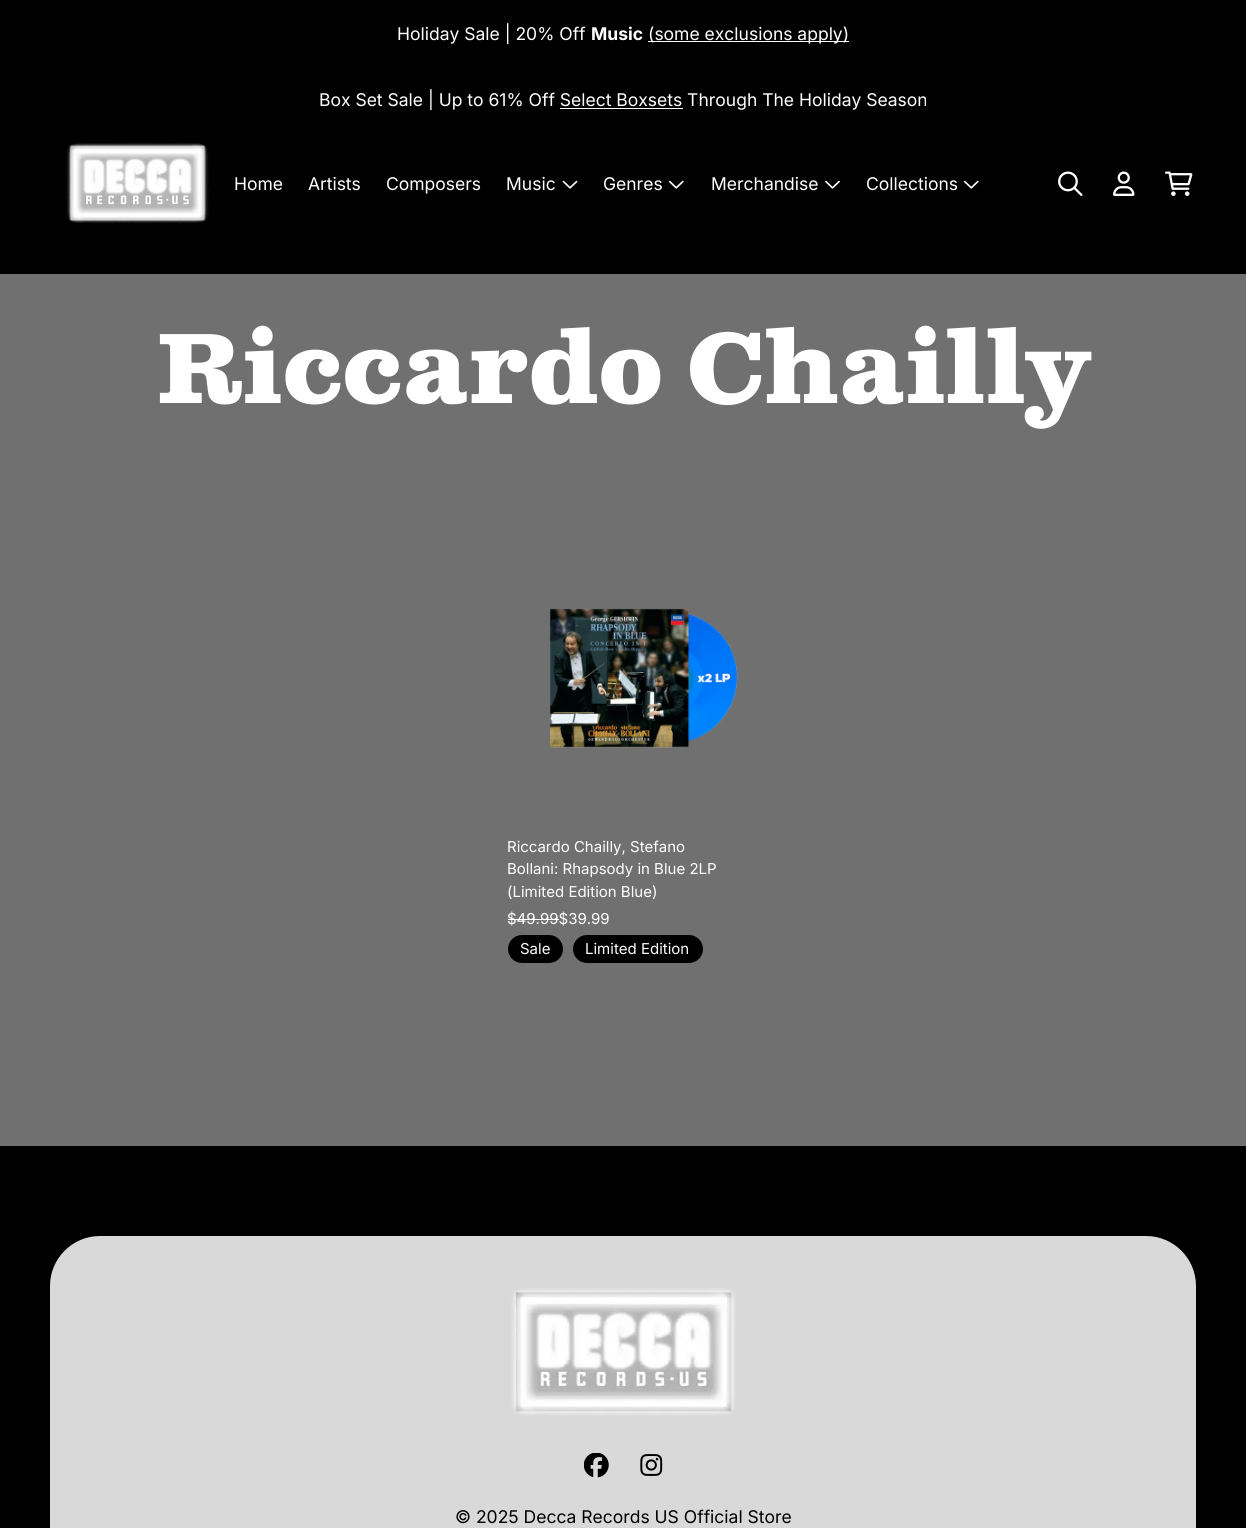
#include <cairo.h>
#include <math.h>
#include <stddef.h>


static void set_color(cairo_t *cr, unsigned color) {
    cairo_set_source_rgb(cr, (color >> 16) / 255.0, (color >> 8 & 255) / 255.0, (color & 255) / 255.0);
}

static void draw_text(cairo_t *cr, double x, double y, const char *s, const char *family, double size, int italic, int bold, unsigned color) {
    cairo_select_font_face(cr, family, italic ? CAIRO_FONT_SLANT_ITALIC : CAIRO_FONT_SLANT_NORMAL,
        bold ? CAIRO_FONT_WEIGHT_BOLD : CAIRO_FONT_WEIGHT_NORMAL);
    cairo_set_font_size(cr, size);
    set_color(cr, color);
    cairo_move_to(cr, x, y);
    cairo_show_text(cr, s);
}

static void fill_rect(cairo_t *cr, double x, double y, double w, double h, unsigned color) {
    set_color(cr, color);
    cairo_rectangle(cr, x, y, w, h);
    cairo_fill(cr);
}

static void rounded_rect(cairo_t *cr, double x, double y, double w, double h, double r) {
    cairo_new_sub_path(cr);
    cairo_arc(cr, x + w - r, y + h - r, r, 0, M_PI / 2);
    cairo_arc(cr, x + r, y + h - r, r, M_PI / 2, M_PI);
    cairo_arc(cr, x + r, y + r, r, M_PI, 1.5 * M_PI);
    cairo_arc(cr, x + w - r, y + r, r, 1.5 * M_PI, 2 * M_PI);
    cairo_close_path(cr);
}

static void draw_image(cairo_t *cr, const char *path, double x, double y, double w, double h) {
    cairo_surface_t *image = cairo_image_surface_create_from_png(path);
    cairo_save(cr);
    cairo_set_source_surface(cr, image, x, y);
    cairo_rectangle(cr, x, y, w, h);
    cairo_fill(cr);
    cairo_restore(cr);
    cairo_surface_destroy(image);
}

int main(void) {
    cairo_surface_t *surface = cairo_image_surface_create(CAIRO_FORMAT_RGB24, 1246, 1528);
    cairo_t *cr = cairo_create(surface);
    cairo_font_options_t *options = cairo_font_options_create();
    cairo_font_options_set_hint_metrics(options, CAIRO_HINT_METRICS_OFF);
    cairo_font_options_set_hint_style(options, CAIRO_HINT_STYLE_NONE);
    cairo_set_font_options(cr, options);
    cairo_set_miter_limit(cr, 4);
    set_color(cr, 0x000000);
    cairo_paint(cr);
    draw_text(cr, 397, 40, "Holiday Sale | 20% Off", "Inter", 17.5, 0, 0, 0xFFFFFF);
    draw_text(cr, 591, 40, "Music", "Inter", 17.5, 0, 1, 0xFFFFFF);
    fill_rect(cr, 648, 41, 201, 1, 0xFFFFFF);
    draw_text(cr, 648, 40, "(some exclusions apply)", "Inter", 17.5, 0, 0, 0xFFFFFF);
    draw_text(cr, 319, 106, "Box Set Sale | Up to 61% Off Select Boxsets Through The Holiday Season", "Inter", 17.5, 0, 0, 0xFFFFFF);
    fill_rect(cr, 560, 108, 123, 1, 0xFFFFFF);
    draw_image(cr, "assets/img1.png", 65, 143, 145, 81);
    draw_text(cr, 234, 190, "Home", "Inter", 17.5, 0, 0, 0xFFFFFF);
    draw_text(cr, 308, 190, "Artists", "Inter", 17.5, 0, 0, 0xFFFFFF);
    draw_text(cr, 386, 190, "Composers", "Inter", 17.5, 0, 0, 0xFFFFFF);
    draw_text(cr, 506, 190, "Music", "Inter", 17.5, 0, 0, 0xFFFFFF);
    draw_image(cr, "assets/img2.png", 562, 180, 16, 9);
    draw_text(cr, 603, 190, "Genres", "Inter", 17.5, 0, 0, 0xFFFFFF);
    draw_image(cr, "assets/img3.png", 668, 180, 16, 9);
    draw_text(cr, 711, 190, "Merchandise", "Inter", 17.5, 0, 0, 0xFFFFFF);
    draw_image(cr, "assets/img4.png", 825, 180, 15, 9);
    draw_text(cr, 866, 190, "Collections", "Inter", 17.5, 0, 0, 0xFFFFFF);
    draw_image(cr, "assets/img3.png", 963, 180, 16, 9);
    draw_image(cr, "assets/img5.png", 1058, 171, 25, 25);
    draw_image(cr, "assets/img6.png", 1113, 171, 22, 25);
    draw_image(cr, "assets/img7.png", 1165, 171, 28, 25);
    fill_rect(cr, 0, 274, 1246, 872, 0x707070);
    draw_text(cr, 156, 403, "Riccardo Chailly", "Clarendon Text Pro", 100, 0, 1, 0xFFFFFF);
    draw_image(cr, "assets/img8.png", 549, 608, 189, 140);
    draw_text(cr, 507, 852, "Riccardo Chailly, Stefano", "Inter", 15, 0, 0, 0xFFFFFF);
    draw_text(cr, 507, 874, "Bollani: Rhapsody in Blue 2LP", "Inter", 15, 0, 0, 0xFFFFFF);
    draw_text(cr, 507, 897, "(Limited Edition Blue)", "Inter", 15, 0, 0, 0xFFFFFF);
    draw_text(cr, 507, 924, "$49.99$39.99", "Inter", 15, 0, 0, 0xFFFFFF);
    fill_rect(cr, 508, 919, 51, 1, 0xFFFFFF);
    set_color(cr, 0x000000);
    rounded_rect(cr, 508, 935, 55, 28, 14);
    cairo_fill(cr);
    draw_text(cr, 520, 954, "Sale", "Inter", 15, 0, 0, 0xFFFFFF);
    set_color(cr, 0x000000);
    rounded_rect(cr, 573, 935, 130, 28, 14);
    cairo_fill(cr);
    draw_text(cr, 585, 954, "Limited Edition", "Inter", 15, 0, 0, 0xFFFFFF);
    set_color(cr, 0xD9D9D9);
    rounded_rect(cr, 50, 1236, 1146, 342, 50);
    cairo_fill(cr);
    draw_image(cr, "assets/img9.png", 511, 1288, 225, 128);
    draw_image(cr, "assets/img10.png", 584, 1453, 25, 25);
    draw_image(cr, "assets/img11.png", 640, 1454, 23, 22);
    draw_text(cr, 455, 1523, "© 2025 Decca Records US Official Store", "Inter", 17.5, 0, 0, 0x000000);
    cairo_surface_write_to_png(surface, "output.png");
    cairo_font_options_destroy(options);
    cairo_destroy(cr);
    cairo_surface_destroy(surface);
    return 0;
}
